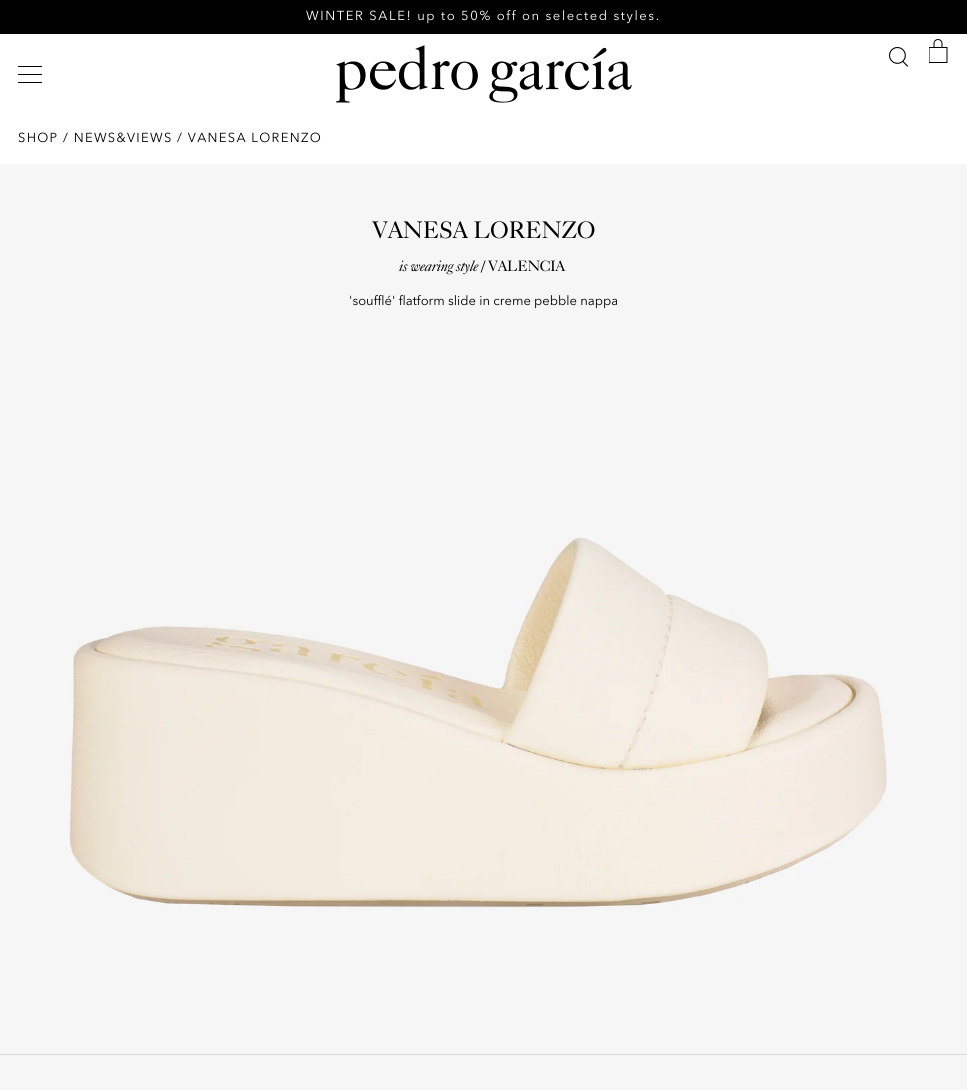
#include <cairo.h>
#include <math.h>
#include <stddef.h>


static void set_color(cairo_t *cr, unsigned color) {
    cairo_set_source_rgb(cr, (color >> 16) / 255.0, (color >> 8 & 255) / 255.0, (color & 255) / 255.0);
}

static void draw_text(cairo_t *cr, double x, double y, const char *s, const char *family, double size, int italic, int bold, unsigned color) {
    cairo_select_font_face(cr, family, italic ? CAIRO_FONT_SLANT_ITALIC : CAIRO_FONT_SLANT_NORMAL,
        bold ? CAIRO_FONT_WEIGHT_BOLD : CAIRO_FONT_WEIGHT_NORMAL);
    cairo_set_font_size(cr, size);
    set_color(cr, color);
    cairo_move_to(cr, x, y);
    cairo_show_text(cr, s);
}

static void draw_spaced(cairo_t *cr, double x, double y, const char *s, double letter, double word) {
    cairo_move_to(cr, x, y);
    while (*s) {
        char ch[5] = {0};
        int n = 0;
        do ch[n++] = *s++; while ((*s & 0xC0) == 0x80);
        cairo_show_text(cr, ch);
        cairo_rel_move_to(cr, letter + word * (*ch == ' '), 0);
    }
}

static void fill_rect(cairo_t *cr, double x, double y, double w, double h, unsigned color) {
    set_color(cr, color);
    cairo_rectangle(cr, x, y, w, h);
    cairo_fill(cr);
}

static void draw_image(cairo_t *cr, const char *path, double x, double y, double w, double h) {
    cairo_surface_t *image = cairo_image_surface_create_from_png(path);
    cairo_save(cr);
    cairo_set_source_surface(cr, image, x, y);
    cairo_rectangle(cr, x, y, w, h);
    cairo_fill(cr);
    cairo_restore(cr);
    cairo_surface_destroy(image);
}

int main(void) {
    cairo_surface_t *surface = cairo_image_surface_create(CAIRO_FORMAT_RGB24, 967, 1090);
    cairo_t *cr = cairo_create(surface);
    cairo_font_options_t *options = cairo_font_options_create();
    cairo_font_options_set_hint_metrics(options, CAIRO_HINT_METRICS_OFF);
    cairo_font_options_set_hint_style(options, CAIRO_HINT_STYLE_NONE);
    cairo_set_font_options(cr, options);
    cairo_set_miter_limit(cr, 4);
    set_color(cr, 0xFFFFFF);
    cairo_paint(cr);
    fill_rect(cr, 0, 0, 967, 34, 0x000000);
    cairo_select_font_face(cr, "Avenir Next", CAIRO_FONT_SLANT_NORMAL, CAIRO_FONT_WEIGHT_NORMAL);
    cairo_set_font_size(cr, 13);
    set_color(cr, 0xFFFFFF);
    draw_spaced(cr, 306, 20, "WINTER SALE! up to 50% off on selected styles.", 1.6, 0);
    fill_rect(cr, 18, 66, 24, 1, 0x000000);
    fill_rect(cr, 18, 74, 24, 1, 0x000000);
    fill_rect(cr, 18, 82, 24, 1, 0x000000);
    draw_image(cr, "assets/img1.png", 336, 45, 296, 58);
    draw_image(cr, "assets/img2.png", 889, 47, 19, 20);
    draw_image(cr, "assets/img3.png", 929, 39, 19, 24);
    draw_spaced(cr, 18, 142, "SHOP / NEWS&VIEWS / VANESA LORENZO", 1.3, 0);
    fill_rect(cr, 0, 164, 967, 926, 0xF6F6F6);
    cairo_select_font_face(cr, "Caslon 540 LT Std", CAIRO_FONT_SLANT_NORMAL, CAIRO_FONT_WEIGHT_NORMAL);
    cairo_set_font_size(cr, 24);
    set_color(cr, 0x000000);
    draw_spaced(cr, 372, 238, "VANESA LORENZO", -0.5, 0);
    cairo_select_font_face(cr, "Caslon 540 LT Std", CAIRO_FONT_SLANT_ITALIC, CAIRO_FONT_WEIGHT_NORMAL);
    cairo_set_font_size(cr, 15);
    draw_spaced(cr, 399, 271, "is wearing style /", -0.5, 0);
    cairo_select_font_face(cr, "Caslon 540 LT Std", CAIRO_FONT_SLANT_NORMAL, CAIRO_FONT_WEIGHT_NORMAL);
    draw_spaced(cr, 488, 271, "VALENCIA", -0.5, 0);
    draw_text(cr, 349, 305, "'soufflé' flatform slide in creme pebble nappa", "Avenir Next", 13, 0, 0, 0x000000);
    draw_image(cr, "assets/img4.png", 69, 537, 818, 373);
    fill_rect(cr, 0, 1054, 967, 1, 0xD8D8D8);
    cairo_surface_write_to_png(surface, "output.png");
    cairo_font_options_destroy(options);
    cairo_destroy(cr);
    cairo_surface_destroy(surface);
    return 0;
}
